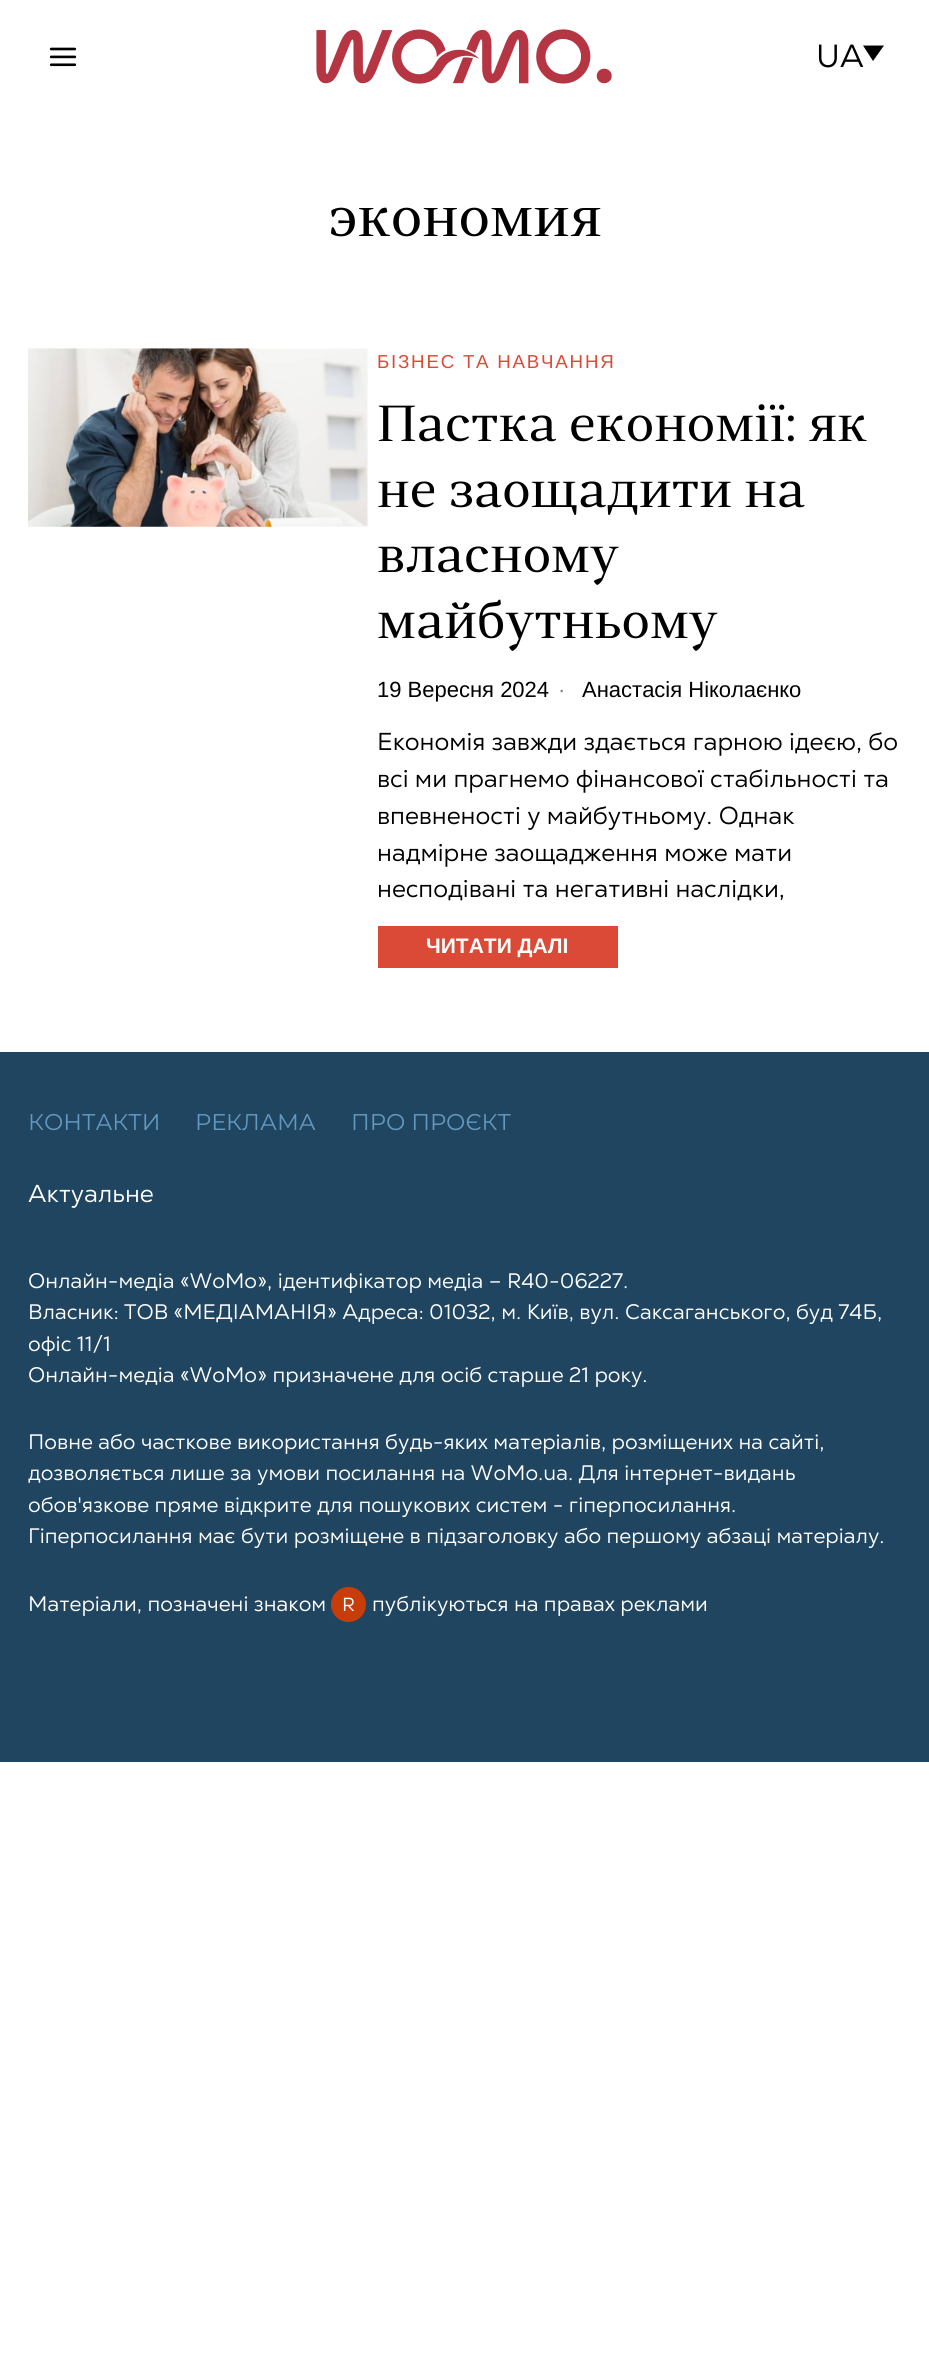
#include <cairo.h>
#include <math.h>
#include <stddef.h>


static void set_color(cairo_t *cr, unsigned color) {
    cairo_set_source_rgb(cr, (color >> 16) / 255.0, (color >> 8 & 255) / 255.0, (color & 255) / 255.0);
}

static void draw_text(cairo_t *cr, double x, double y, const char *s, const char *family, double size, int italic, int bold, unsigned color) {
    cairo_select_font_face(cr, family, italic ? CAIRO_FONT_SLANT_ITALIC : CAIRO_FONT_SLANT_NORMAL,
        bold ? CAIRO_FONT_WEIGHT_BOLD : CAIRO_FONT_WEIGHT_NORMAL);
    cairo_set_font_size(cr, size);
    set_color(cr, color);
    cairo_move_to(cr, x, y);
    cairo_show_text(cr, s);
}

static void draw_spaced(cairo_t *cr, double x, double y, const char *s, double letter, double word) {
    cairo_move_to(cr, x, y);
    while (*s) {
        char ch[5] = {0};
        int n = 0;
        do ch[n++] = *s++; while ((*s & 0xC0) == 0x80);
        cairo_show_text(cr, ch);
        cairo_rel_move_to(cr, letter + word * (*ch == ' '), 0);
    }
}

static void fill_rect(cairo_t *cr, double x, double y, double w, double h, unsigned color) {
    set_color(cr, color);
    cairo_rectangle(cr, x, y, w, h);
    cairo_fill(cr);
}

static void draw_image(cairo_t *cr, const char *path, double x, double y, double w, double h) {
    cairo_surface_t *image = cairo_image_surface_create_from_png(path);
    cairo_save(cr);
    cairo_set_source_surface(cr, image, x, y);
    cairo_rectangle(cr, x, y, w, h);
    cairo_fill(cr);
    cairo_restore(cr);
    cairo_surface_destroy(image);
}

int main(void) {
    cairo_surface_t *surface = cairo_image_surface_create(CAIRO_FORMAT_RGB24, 929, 2364);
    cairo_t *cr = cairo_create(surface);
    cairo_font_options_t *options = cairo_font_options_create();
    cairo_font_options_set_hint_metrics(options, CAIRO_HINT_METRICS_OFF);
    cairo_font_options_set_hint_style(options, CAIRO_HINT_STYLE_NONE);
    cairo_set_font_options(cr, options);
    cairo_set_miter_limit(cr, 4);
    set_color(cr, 0xFFFFFF);
    cairo_paint(cr);
    draw_image(cr, "assets/img1.png", 49, 47, 28, 20);
    draw_image(cr, "assets/img2.png", 316, 29, 296, 55);
    draw_text(cr, 816, 67, "UA", "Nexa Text", 32, 0, 0, 0x000000);
    cairo_new_path(cr);
    cairo_move_to(cr, 863, 45.5);
    cairo_line_to(cr, 884, 45.5);
    cairo_line_to(cr, 873, 61);
    cairo_close_path(cr);
    cairo_fill(cr);
    draw_text(cr, 328, 236, "экономия", "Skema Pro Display", 56, 0, 0, 0x000000);
    draw_image(cr, "assets/img3.png", 28, 348, 340, 179);
    cairo_select_font_face(cr, "Liberation Sans", CAIRO_FONT_SLANT_NORMAL, CAIRO_FONT_WEIGHT_NORMAL);
    cairo_set_font_size(cr, 18.75);
    set_color(cr, 0xDB4A37);
    draw_spaced(cr, 377, 368, "БІЗНЕС ТА НАВЧАННЯ", 1.75, 0);
    draw_text(cr, 377, 441, "Пастка економії: як", "Skema Pro Display", 50.5, 0, 0, 0x000000);
    draw_text(cr, 377, 507, "не заощадити на", "Skema Pro Display", 50.5, 0, 0, 0x000000);
    draw_text(cr, 377, 572, "власному", "Skema Pro Display", 50.5, 0, 0, 0x000000);
    draw_text(cr, 377, 638, "майбутньому", "Skema Pro Display", 50.5, 0, 0, 0x000000);
    draw_text(cr, 377, 697, "19 Вересня 2024", "Liberation Sans", 22, 0, 0, 0x000000);
    draw_text(cr, 558, 697, "·", "Liberation Sans", 22, 0, 0, 0x808080);
    draw_text(cr, 582, 697, "Анастасія Ніколаєнко", "Liberation Sans", 22, 0, 0, 0x000000);
    draw_text(cr, 377, 750, "Економія завжди здається гарною ідеєю, бо", "Nexa Text", 24.5, 0, 0, 0x000000);
    draw_text(cr, 377, 787, "всі ми прагнемо фінансової стабільності та", "Nexa Text", 24.5, 0, 0, 0x000000);
    draw_text(cr, 377, 824, "впевненості у майбутньому. Однак", "Nexa Text", 24.5, 0, 0, 0x000000);
    draw_text(cr, 377, 861, "надмірне заощадження може мати", "Nexa Text", 24.5, 0, 0, 0x000000);
    draw_text(cr, 377, 897, "несподівані та негативні наслідки,", "Nexa Text", 24.5, 0, 0, 0x000000);
    fill_rect(cr, 378, 926, 240, 42, 0xDB4A37);
    draw_text(cr, 426, 953, "ЧИТАТИ ДАЛІ", "Liberation Sans", 21, 0, 1, 0xFFFFFF);
    fill_rect(cr, 0, 1052, 929, 710, 0x204560);
    draw_text(cr, 28, 1130, "КОНТАКТИ", "Montserrat", 22.75, 0, 0, 0x6199BF);
    draw_text(cr, 195, 1130, "РЕКЛАМА", "Montserrat", 22.75, 0, 0, 0x6199BF);
    draw_text(cr, 351, 1130, "ПРО ПРОЄКТ", "Montserrat", 22.75, 0, 0, 0x6199BF);
    draw_text(cr, 28, 1202, "Актуальне", "Nexa Text", 24.5, 0, 0, 0xFFFFFF);
    draw_text(cr, 28, 1288, "Онлайн-медіа «WoMo», ідентифікатор медіа – R40-06227.", "Nexa Text", 21, 0, 0, 0xFFFFFF);
    draw_text(cr, 28, 1319, "Власник: ТОВ «МЕДІАМАНІЯ» Адреса: 01032, м. Київ, вул. Саксаганського, буд 74Б,", "Nexa Text", 21, 0, 0, 0xFFFFFF);
    draw_text(cr, 28, 1351, "офіс 11/1", "Nexa Text", 21, 0, 0, 0xFFFFFF);
    draw_text(cr, 28, 1382, "Онлайн-медіа «WoMo» призначене для осіб старше 21 року.", "Nexa Text", 21, 0, 0, 0xFFFFFF);
    draw_text(cr, 28, 1449, "Повне або часткове використання будь-яких матеріалів, розміщених на сайті,", "Nexa Text", 21, 0, 0, 0xFFFFFF);
    draw_text(cr, 28, 1480, "дозволяється лише за умови посилання на WoMo.ua. Для інтернет-видань", "Nexa Text", 21, 0, 0, 0xFFFFFF);
    draw_text(cr, 28, 1512, "обов'язкове пряме відкрите для пошукових систем - гіперпосилання.", "Nexa Text", 21, 0, 0, 0xFFFFFF);
    draw_text(cr, 28, 1543, "Гіперпосилання має бути розміщене в підзаголовку або першому абзаці матеріалу.", "Nexa Text", 21, 0, 0, 0xFFFFFF);
    draw_text(cr, 28, 1611, "Матеріали, позначені знаком", "Nexa Text", 21, 0, 0, 0xFFFFFF);
    set_color(cr, 0xC73D0A);
    cairo_new_path(cr);
    cairo_arc(cr, 348.5, 1604.5, 17.5, 0, 2 * M_PI);
    cairo_fill(cr);
    draw_text(cr, 342, 1611, "R", "Nexa Text", 19, 0, 0, 0xFFFFFF);
    draw_text(cr, 372, 1611, "публікуються на правах реклами", "Nexa Text", 21, 0, 0, 0xFFFFFF);
    cairo_surface_write_to_png(surface, "output.png");
    cairo_font_options_destroy(options);
    cairo_destroy(cr);
    cairo_surface_destroy(surface);
    return 0;
}
